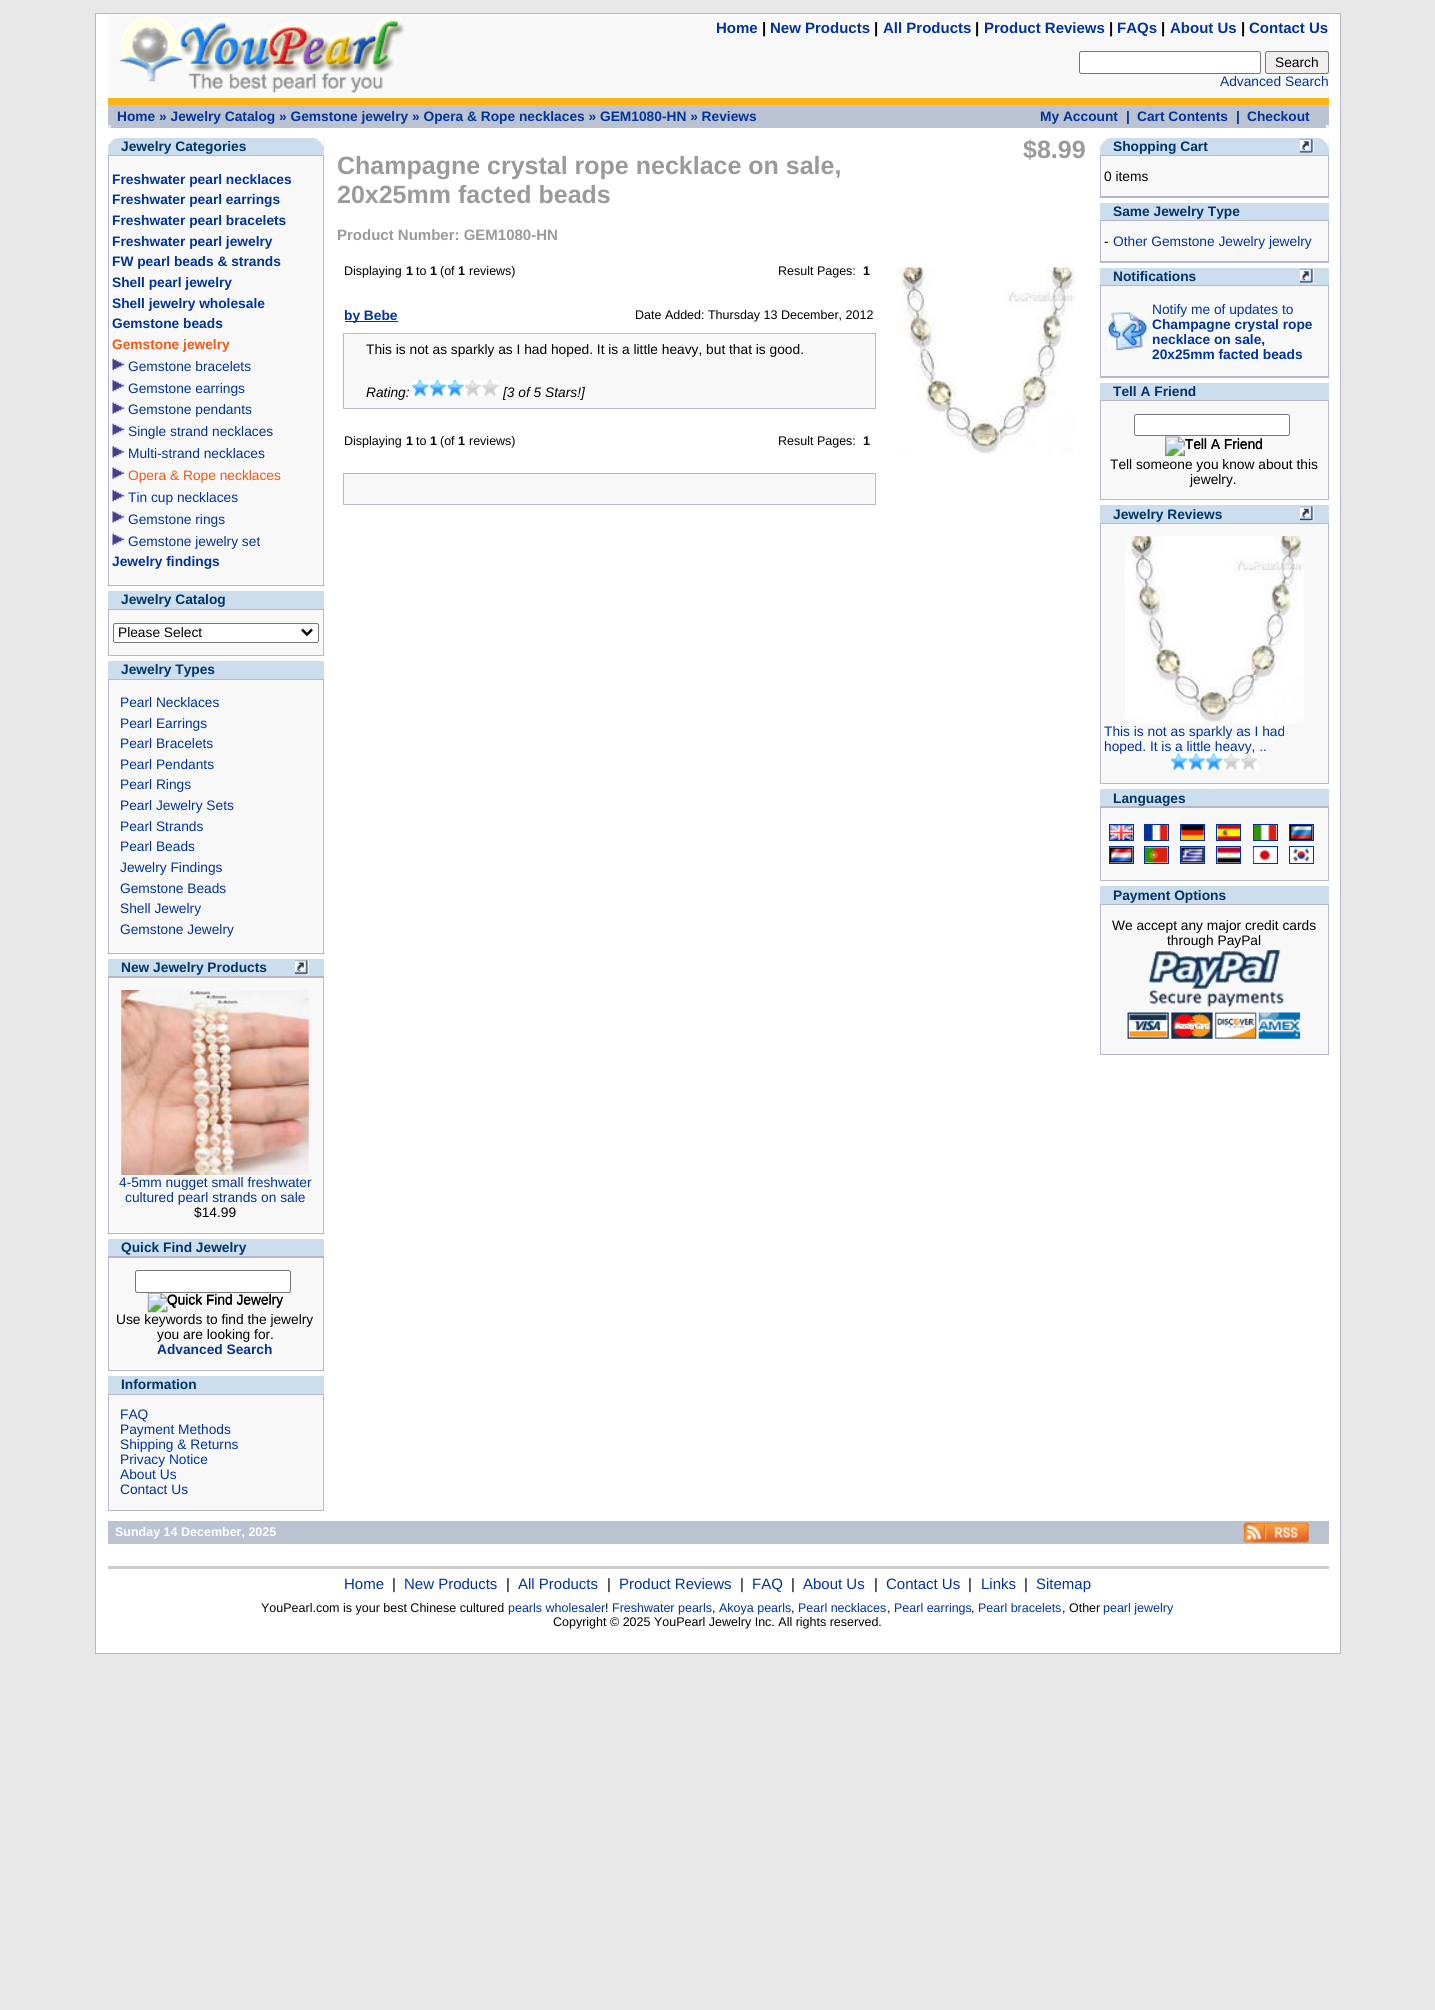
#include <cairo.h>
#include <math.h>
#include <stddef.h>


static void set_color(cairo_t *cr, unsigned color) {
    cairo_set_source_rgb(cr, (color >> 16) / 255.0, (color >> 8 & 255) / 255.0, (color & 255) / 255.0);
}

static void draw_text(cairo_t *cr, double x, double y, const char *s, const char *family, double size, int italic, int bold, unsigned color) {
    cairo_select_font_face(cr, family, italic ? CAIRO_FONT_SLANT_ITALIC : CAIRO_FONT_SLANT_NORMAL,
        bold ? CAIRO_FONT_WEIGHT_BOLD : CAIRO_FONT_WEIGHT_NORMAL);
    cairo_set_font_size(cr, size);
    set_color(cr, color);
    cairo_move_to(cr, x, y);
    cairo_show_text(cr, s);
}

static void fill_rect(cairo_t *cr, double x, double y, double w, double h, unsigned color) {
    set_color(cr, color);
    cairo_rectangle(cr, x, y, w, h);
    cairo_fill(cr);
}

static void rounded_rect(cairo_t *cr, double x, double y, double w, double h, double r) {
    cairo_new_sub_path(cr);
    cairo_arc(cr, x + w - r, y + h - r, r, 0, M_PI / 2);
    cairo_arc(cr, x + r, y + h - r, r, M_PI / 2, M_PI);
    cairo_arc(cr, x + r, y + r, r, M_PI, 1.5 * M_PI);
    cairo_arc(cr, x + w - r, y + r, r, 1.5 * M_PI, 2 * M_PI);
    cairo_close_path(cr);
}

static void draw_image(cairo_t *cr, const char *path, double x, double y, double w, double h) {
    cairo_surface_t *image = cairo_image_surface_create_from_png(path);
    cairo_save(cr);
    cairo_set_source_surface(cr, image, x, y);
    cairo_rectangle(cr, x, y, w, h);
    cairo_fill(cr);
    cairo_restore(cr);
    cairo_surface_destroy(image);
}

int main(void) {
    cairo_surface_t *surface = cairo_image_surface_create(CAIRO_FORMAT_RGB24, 1435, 2010);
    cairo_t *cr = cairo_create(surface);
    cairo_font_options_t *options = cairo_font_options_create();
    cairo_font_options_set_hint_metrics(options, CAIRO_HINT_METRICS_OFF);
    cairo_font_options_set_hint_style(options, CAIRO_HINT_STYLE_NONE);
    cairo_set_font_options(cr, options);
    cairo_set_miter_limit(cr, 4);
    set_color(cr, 0xE8E8E8);
    cairo_paint(cr);
    set_color(cr, 0xFFFFFF);
    cairo_rectangle(cr, 95.5, 13.5, 1245, 1640);
    cairo_fill_preserve(cr);
    set_color(cr, 0xB6B7CB);
    cairo_set_line_width(cr, 1);
    cairo_stroke(cr);
    fill_rect(cr, 108, 15, 1221, 83, 0xF8F8F9);
    draw_image(cr, "assets/img1.png", 119, 16, 286, 77);
    draw_text(cr, 716, 33, "Home", "Liberation Sans", 15, 0, 1, 0x003399);
    draw_text(cr, 762, 33, "|", "Liberation Sans", 15, 0, 1, 0x000000);
    draw_text(cr, 770, 33, "New Products", "Liberation Sans", 15, 0, 1, 0x003399);
    draw_text(cr, 874, 33, "|", "Liberation Sans", 15, 0, 1, 0x000000);
    draw_text(cr, 883, 33, "All Products", "Liberation Sans", 15, 0, 1, 0x003399);
    draw_text(cr, 975, 33, "|", "Liberation Sans", 15, 0, 1, 0x000000);
    draw_text(cr, 984, 33, "Product Reviews", "Liberation Sans", 15, 0, 1, 0x003399);
    draw_text(cr, 1109, 33, "|", "Liberation Sans", 15, 0, 1, 0x000000);
    draw_text(cr, 1117, 33, "FAQs", "Liberation Sans", 15, 0, 1, 0x003399);
    draw_text(cr, 1161, 33, "|", "Liberation Sans", 15, 0, 1, 0x000000);
    draw_text(cr, 1170, 33, "About Us", "Liberation Sans", 15, 0, 1, 0x003399);
    draw_text(cr, 1241, 33, "|", "Liberation Sans", 15, 0, 1, 0x000000);
    draw_text(cr, 1249, 33, "Contact Us", "Liberation Sans", 15, 0, 1, 0x003399);
    set_color(cr, 0xFFFFFF);
    rounded_rect(cr, 1079.5, 51.5, 181, 22, 2);
    cairo_fill_preserve(cr);
    set_color(cr, 0x767676);
    cairo_stroke(cr);
    set_color(cr, 0xEFEFEF);
    rounded_rect(cr, 1265.5, 51.5, 63, 22, 2);
    cairo_fill_preserve(cr);
    set_color(cr, 0x767676);
    cairo_stroke(cr);
    draw_text(cr, 1275, 67, "Search", "Liberation Sans", 13.75, 0, 0, 0x000000);
    draw_text(cr, 1220, 86, "Advanced Search", "Liberation Sans", 13.75, 0, 0, 0x003399);
    fill_rect(cr, 108, 98, 1221, 7, 0xFFB515);
    fill_rect(cr, 108, 105, 1221, 23, 0xBBC3D3);
    draw_text(cr, 117, 121, "Home » Jewelry Catalog » Gemstone jewelry » Opera & Rope necklaces » GEM1080-HN » Reviews", "Liberation Sans", 13.75, 0, 1, 0x003399);
    draw_text(cr, 1040, 121, "My Account", "Liberation Sans", 13.75, 0, 1, 0x003399);
    draw_text(cr, 1126, 121, "|", "Liberation Sans", 13.75, 0, 1, 0x003399);
    draw_text(cr, 1137, 121, "Cart Contents", "Liberation Sans", 13.75, 0, 1, 0x003399);
    draw_text(cr, 1236, 121, "|", "Liberation Sans", 13.75, 0, 1, 0x003399);
    draw_text(cr, 1247, 121, "Checkout", "Liberation Sans", 13.75, 0, 1, 0x003399);
    fill_rect(cr, 108, 125, 3, 3, 0xE7E9EF);
    fill_rect(cr, 1326, 125, 3, 3, 0xF4F5F8);
    fill_rect(cr, 108, 138, 216, 17, 0xCCDDEE);
    draw_image(cr, "assets/img2.png", 108, 138, 9, 9);
    draw_text(cr, 121, 151, "Jewelry Categories", "Liberation Sans", 13.75, 0, 1, 0x003366);
    draw_image(cr, "assets/img3.png", 315, 138, 9, 9);
    fill_rect(cr, 108, 155, 216, 431, 0xB6B7CB);
    fill_rect(cr, 109, 156, 214, 429, 0xF8F8F9);
    draw_text(cr, 112, 184, "Freshwater pearl necklaces", "Liberation Sans", 13.75, 0, 1, 0x003399);
    draw_text(cr, 112, 204, "Freshwater pearl earrings", "Liberation Sans", 13.75, 0, 1, 0x003399);
    draw_text(cr, 112, 225, "Freshwater pearl bracelets", "Liberation Sans", 13.75, 0, 1, 0x003399);
    draw_text(cr, 112, 246, "Freshwater pearl jewelry", "Liberation Sans", 13.75, 0, 1, 0x003399);
    draw_text(cr, 112, 266, "FW pearl beads & strands", "Liberation Sans", 13.75, 0, 1, 0x003399);
    draw_text(cr, 112, 287, "Shell pearl jewelry", "Liberation Sans", 13.75, 0, 1, 0x003399);
    draw_text(cr, 112, 308, "Shell jewelry wholesale", "Liberation Sans", 13.75, 0, 1, 0x003399);
    draw_text(cr, 112, 328, "Gemstone beads", "Liberation Sans", 13.75, 0, 1, 0x003399);
    draw_text(cr, 112, 349, "Gemstone jewelry", "Liberation Sans", 13.75, 0, 1, 0xF25713);
    draw_image(cr, "assets/img4.png", 112, 358, 13, 13);
    draw_text(cr, 128, 371, "Gemstone bracelets", "Liberation Sans", 13.75, 0, 0, 0x003399);
    draw_image(cr, "assets/img5.png", 112, 379, 13, 13);
    draw_text(cr, 128, 393, "Gemstone earrings", "Liberation Sans", 13.75, 0, 0, 0x003399);
    draw_image(cr, "assets/img6.png", 112, 402, 13, 12);
    draw_text(cr, 128, 414, "Gemstone pendants", "Liberation Sans", 13.75, 0, 0, 0x003399);
    draw_image(cr, "assets/img4.png", 112, 423, 13, 13);
    draw_text(cr, 128, 436, "Single strand necklaces", "Liberation Sans", 13.75, 0, 0, 0x003399);
    draw_image(cr, "assets/img7.png", 112, 446, 13, 12);
    draw_text(cr, 128, 458, "Multi-strand necklaces", "Liberation Sans", 13.75, 0, 0, 0x003399);
    draw_image(cr, "assets/img6.png", 112, 467, 13, 12);
    draw_text(cr, 128, 480, "Opera & Rope necklaces", "Liberation Sans", 13.75, 0, 0, 0xF25713);
    draw_image(cr, "assets/img5.png", 112, 489, 13, 13);
    draw_text(cr, 128, 502, "Tin cup necklaces", "Liberation Sans", 13.75, 0, 0, 0x003399);
    draw_image(cr, "assets/img7.png", 112, 511, 13, 12);
    draw_text(cr, 128, 524, "Gemstone rings", "Liberation Sans", 13.75, 0, 0, 0x003399);
    draw_image(cr, "assets/img4.png", 112, 533, 13, 13);
    draw_text(cr, 128, 546, "Gemstone jewelry set", "Liberation Sans", 13.75, 0, 0, 0x003399);
    draw_text(cr, 112, 566, "Jewelry findings", "Liberation Sans", 13.75, 0, 1, 0x003399);
    fill_rect(cr, 108, 591, 216, 18, 0xCCDDEE);
    draw_text(cr, 121, 604, "Jewelry Catalog", "Liberation Sans", 13.75, 0, 1, 0x003366);
    fill_rect(cr, 108, 609, 216, 47, 0xB6B7CB);
    fill_rect(cr, 109, 610, 214, 45, 0xF8F8F9);
    set_color(cr, 0xFFFFFF);
    rounded_rect(cr, 113.5, 623.5, 205, 19, 2);
    cairo_fill_preserve(cr);
    set_color(cr, 0x767676);
    cairo_stroke(cr);
    cairo_new_path(cr);
    cairo_move_to(cr, 302, 629.5);
    cairo_line_to(cr, 307, 634.5);
    cairo_line_to(cr, 312, 629.5);
    set_color(cr, 0x000000);
    cairo_set_line_width(cr, 2.5);
    cairo_stroke(cr);
    draw_text(cr, 118, 637, "Please Select", "Liberation Sans", 13.75, 0, 0, 0x000000);
    fill_rect(cr, 108, 661, 216, 18, 0xCCDDEE);
    draw_text(cr, 121, 674, "Jewelry Types", "Liberation Sans", 13.75, 0, 1, 0x003366);
    fill_rect(cr, 108, 679, 216, 275, 0xB6B7CB);
    fill_rect(cr, 109, 680, 214, 273, 0xF8F8F9);
    draw_text(cr, 120, 707, "Pearl Necklaces", "Liberation Sans", 13.75, 0, 0, 0x003399);
    draw_text(cr, 120, 728, "Pearl Earrings", "Liberation Sans", 13.75, 0, 0, 0x003399);
    draw_text(cr, 120, 748, "Pearl Bracelets", "Liberation Sans", 13.75, 0, 0, 0x003399);
    draw_text(cr, 120, 769, "Pearl Pendants", "Liberation Sans", 13.75, 0, 0, 0x003399);
    draw_text(cr, 120, 789, "Pearl Rings", "Liberation Sans", 13.75, 0, 0, 0x003399);
    draw_text(cr, 120, 810, "Pearl Jewelry Sets", "Liberation Sans", 13.75, 0, 0, 0x003399);
    draw_text(cr, 120, 831, "Pearl Strands", "Liberation Sans", 13.75, 0, 0, 0x003399);
    draw_text(cr, 120, 851, "Pearl Beads", "Liberation Sans", 13.75, 0, 0, 0x003399);
    draw_text(cr, 120, 872, "Jewelry Findings", "Liberation Sans", 13.75, 0, 0, 0x003399);
    draw_text(cr, 120, 893, "Gemstone Beads", "Liberation Sans", 13.75, 0, 0, 0x003399);
    draw_text(cr, 120, 913, "Shell Jewelry", "Liberation Sans", 13.75, 0, 0, 0x003399);
    draw_text(cr, 120, 934, "Gemstone Jewelry", "Liberation Sans", 13.75, 0, 0, 0x003399);
    fill_rect(cr, 108, 959, 216, 17, 0xCCDDEE);
    draw_text(cr, 121, 972, "New Jewelry Products", "Liberation Sans", 13.75, 0, 1, 0x003366);
    draw_image(cr, "assets/img8.png", 295, 959, 14, 17);
    fill_rect(cr, 108, 976, 216, 258, 0xB6B7CB);
    fill_rect(cr, 109, 978, 214, 255, 0xF8F8F9);
    draw_image(cr, "assets/img9.png", 121, 990, 188, 185);
    draw_text(cr, 119, 1187, "4-5mm nugget small freshwater", "Liberation Sans", 13.75, 0, 0, 0x003399);
    draw_text(cr, 125, 1202, "cultured pearl strands on sale", "Liberation Sans", 13.75, 0, 0, 0x003399);
    draw_text(cr, 194, 1217, "$14.99", "Liberation Sans", 13.75, 0, 0, 0x000000);
    fill_rect(cr, 108, 1239, 216, 17, 0xCCDDEE);
    draw_text(cr, 121, 1252, "Quick Find Jewelry", "Liberation Sans", 13.75, 0, 1, 0x003366);
    fill_rect(cr, 108, 1256, 216, 115, 0xB6B7CB);
    fill_rect(cr, 109, 1258, 214, 112, 0xF8F8F9);
    set_color(cr, 0xFFFFFF);
    rounded_rect(cr, 135.5, 1270.5, 155, 22, 2);
    cairo_fill_preserve(cr);
    set_color(cr, 0x767676);
    cairo_set_line_width(cr, 1);
    cairo_stroke(cr);
    draw_image(cr, "assets/img10.png", 147, 1292, 136, 21);
    draw_text(cr, 167, 1304, "Quick Find Jewelry", "Liberation Sans", 13.75, 0, 0, 0x000000);
    draw_text(cr, 116, 1324, "Use keywords to find the jewelry", "Liberation Sans", 13.75, 0, 0, 0x000000);
    draw_text(cr, 157, 1339, "you are looking for.", "Liberation Sans", 13.75, 0, 0, 0x000000);
    draw_text(cr, 157, 1354, "Advanced Search", "Liberation Sans", 13.75, 0, 1, 0x003399);
    fill_rect(cr, 108, 1376, 216, 18, 0xCCDDEE);
    draw_text(cr, 121, 1389, "Information", "Liberation Sans", 13.75, 0, 1, 0x003366);
    fill_rect(cr, 108, 1394, 216, 117, 0xB6B7CB);
    fill_rect(cr, 109, 1395, 214, 115, 0xF8F8F9);
    draw_text(cr, 120, 1419, "FAQ", "Liberation Sans", 13.75, 0, 0, 0x003399);
    draw_text(cr, 120, 1434, "Payment Methods", "Liberation Sans", 13.75, 0, 0, 0x003399);
    draw_text(cr, 120, 1449, "Shipping & Returns", "Liberation Sans", 13.75, 0, 0, 0x003399);
    draw_text(cr, 120, 1464, "Privacy Notice", "Liberation Sans", 13.75, 0, 0, 0x003399);
    draw_text(cr, 120, 1479, "About Us", "Liberation Sans", 13.75, 0, 0, 0x003399);
    draw_text(cr, 120, 1494, "Contact Us", "Liberation Sans", 13.75, 0, 0, 0x003399);
    draw_text(cr, 1023, 158, "$8.99", "Liberation Sans", 25, 0, 1, 0x9A9A9A);
    draw_text(cr, 337, 174, "Champagne crystal rope necklace on sale,", "Liberation Sans", 25, 0, 1, 0x9A9A9A);
    draw_text(cr, 337, 203, "20x25mm facted beads", "Liberation Sans", 25, 0, 1, 0x9A9A9A);
    draw_text(cr, 337, 240, "Product Number: GEM1080-HN", "Liberation Sans", 15, 0, 1, 0x9A9A9A);
    draw_text(cr, 344, 275, "Displaying", "Liberation Sans", 12.5, 0, 0, 0x000000);
    draw_text(cr, 406, 275, "1", "Liberation Sans", 12.5, 0, 1, 0x000000);
    draw_text(cr, 416, 275, "to", "Liberation Sans", 12.5, 0, 0, 0x000000);
    draw_text(cr, 430, 275, "1", "Liberation Sans", 12.5, 0, 1, 0x000000);
    draw_text(cr, 440, 275, "(of", "Liberation Sans", 12.5, 0, 0, 0x000000);
    draw_text(cr, 458, 275, "1", "Liberation Sans", 12.5, 0, 1, 0x000000);
    draw_text(cr, 469, 275, "reviews)", "Liberation Sans", 12.5, 0, 0, 0x000000);
    draw_text(cr, 778, 275, "Result Pages:", "Liberation Sans", 12.5, 0, 0, 0x000000);
    draw_text(cr, 863, 275, "1", "Liberation Sans", 12.5, 0, 1, 0x000000);
    fill_rect(cr, 345, 321, 53, 1, 0x003399);
    draw_text(cr, 344, 320, "by Bebe", "Liberation Sans", 13.75, 0, 1, 0x003399);
    draw_text(cr, 635, 319, "Date Added: Thursday 13 December, 2012", "Liberation Sans", 12.5, 0, 0, 0x000000);
    fill_rect(cr, 343, 333, 533, 76, 0xB6B7CB);
    fill_rect(cr, 344, 334, 531, 74, 0xF8F8F9);
    draw_text(cr, 366, 354, "This is not as sparkly as I had hoped. It is a little heavy, but that is good.", "Liberation Sans", 13.75, 0, 0, 0x000000);
    draw_text(cr, 366, 397, "Rating:", "Liberation Sans", 13.75, 1, 0, 0x000000);
    draw_image(cr, "assets/img11.png", 412, 380, 87, 17);
    draw_text(cr, 503, 397, "[3 of 5 Stars!]", "Liberation Sans", 13.75, 1, 0, 0x000000);
    draw_text(cr, 344, 445, "Displaying", "Liberation Sans", 12.5, 0, 0, 0x000000);
    draw_text(cr, 406, 445, "1", "Liberation Sans", 12.5, 0, 1, 0x000000);
    draw_text(cr, 416, 445, "to", "Liberation Sans", 12.5, 0, 0, 0x000000);
    draw_text(cr, 430, 445, "1", "Liberation Sans", 12.5, 0, 1, 0x000000);
    draw_text(cr, 440, 445, "(of", "Liberation Sans", 12.5, 0, 0, 0x000000);
    draw_text(cr, 458, 445, "1", "Liberation Sans", 12.5, 0, 1, 0x000000);
    draw_text(cr, 469, 445, "reviews)", "Liberation Sans", 12.5, 0, 0, 0x000000);
    draw_text(cr, 778, 445, "Result Pages:", "Liberation Sans", 12.5, 0, 0, 0x000000);
    draw_text(cr, 863, 445, "1", "Liberation Sans", 12.5, 0, 1, 0x000000);
    fill_rect(cr, 343, 473, 533, 32, 0xB6B7CB);
    fill_rect(cr, 344, 474, 531, 30, 0xF8F8F9);
    draw_image(cr, "assets/img12.png", 896, 267, 179, 187);
    fill_rect(cr, 1100, 138, 229, 17, 0xCCDDEE);
    draw_image(cr, "assets/img13.png", 1100, 138, 9, 9);
    draw_text(cr, 1113, 151, "Shopping Cart", "Liberation Sans", 13.75, 0, 1, 0x003366);
    draw_image(cr, "assets/img14.png", 1300, 138, 14, 16);
    draw_image(cr, "assets/img3.png", 1320, 138, 9, 9);
    fill_rect(cr, 1100, 155, 229, 43, 0xB6B7CB);
    fill_rect(cr, 1101, 156, 227, 40, 0xF8F8F9);
    draw_text(cr, 1104, 181, "0 items", "Liberation Sans", 13.75, 0, 0, 0x000000);
    fill_rect(cr, 1100, 203, 229, 17, 0xCCDDEE);
    draw_text(cr, 1113, 216, "Same Jewelry Type", "Liberation Sans", 13.75, 0, 1, 0x003366);
    fill_rect(cr, 1100, 220, 229, 43, 0xB6B7CB);
    fill_rect(cr, 1101, 221, 227, 40, 0xF8F8F9);
    draw_text(cr, 1104, 246, "-", "Liberation Sans", 13.75, 0, 0, 0x000000);
    draw_text(cr, 1113, 246, "Other Gemstone Jewelry jewelry", "Liberation Sans", 13.75, 0, 0, 0x003399);
    fill_rect(cr, 1100, 268, 229, 17, 0xCCDDEE);
    draw_text(cr, 1113, 281, "Notifications", "Liberation Sans", 13.75, 0, 1, 0x003366);
    draw_image(cr, "assets/img14.png", 1300, 268, 14, 16);
    fill_rect(cr, 1100, 285, 229, 93, 0xB6B7CB);
    fill_rect(cr, 1101, 286, 227, 90, 0xF8F8F9);
    draw_image(cr, "assets/img15.png", 1107, 311, 41, 41);
    draw_text(cr, 1152, 314, "Notify me of updates to", "Liberation Sans", 13.75, 0, 0, 0x003399);
    draw_text(cr, 1152, 329, "Champagne crystal rope", "Liberation Sans", 13.75, 0, 1, 0x003399);
    draw_text(cr, 1152, 344, "necklace on sale,", "Liberation Sans", 13.75, 0, 1, 0x003399);
    draw_text(cr, 1152, 359, "20x25mm facted beads", "Liberation Sans", 13.75, 0, 1, 0x003399);
    fill_rect(cr, 1100, 383, 229, 17, 0xCCDDEE);
    draw_text(cr, 1113, 396, "Tell A Friend", "Liberation Sans", 13.75, 0, 1, 0x003366);
    fill_rect(cr, 1100, 400, 229, 100, 0xB6B7CB);
    fill_rect(cr, 1101, 401, 227, 98, 0xF8F8F9);
    set_color(cr, 0xFFFFFF);
    rounded_rect(cr, 1134.5, 414.5, 155, 21, 2);
    cairo_fill_preserve(cr);
    set_color(cr, 0x767676);
    cairo_stroke(cr);
    draw_image(cr, "assets/img16.png", 1165, 436, 97, 21);
    draw_text(cr, 1185, 449, "Tell A Friend", "Liberation Sans", 13.75, 0, 0, 0x000000);
    draw_text(cr, 1110, 469, "Tell someone you know about this", "Liberation Sans", 13.75, 0, 0, 0x000000);
    draw_text(cr, 1190, 484, "jewelry.", "Liberation Sans", 13.75, 0, 0, 0x000000);
    fill_rect(cr, 1100, 505, 229, 18, 0xCCDDEE);
    draw_text(cr, 1113, 519, "Jewelry Reviews", "Liberation Sans", 13.75, 0, 1, 0x003366);
    draw_image(cr, "assets/img17.png", 1300, 506, 14, 16);
    fill_rect(cr, 1100, 523, 229, 261, 0xB6B7CB);
    fill_rect(cr, 1101, 524, 227, 259, 0xF8F8F9);
    draw_image(cr, "assets/img18.png", 1125, 536, 179, 188);
    draw_text(cr, 1104, 736, "This is not as sparkly as I had", "Liberation Sans", 13.75, 0, 0, 0x003399);
    draw_text(cr, 1104, 751, "hoped. It is a little heavy, ..", "Liberation Sans", 13.75, 0, 0, 0x003399);
    draw_image(cr, "assets/img19.png", 1171, 753, 87, 17);
    fill_rect(cr, 1100, 789, 229, 17, 0xCCDDEE);
    draw_text(cr, 1113, 803, "Languages", "Liberation Sans", 13.75, 0, 1, 0x003366);
    fill_rect(cr, 1100, 806, 229, 75, 0xB6B7CB);
    fill_rect(cr, 1101, 808, 227, 72, 0xF8F8F9);
    cairo_rectangle(cr, 1109.5, 824.5, 24, 16);
    set_color(cr, 0x003399);
    cairo_stroke(cr);
    draw_image(cr, "assets/img20.png", 1110, 825, 23, 15);
    cairo_rectangle(cr, 1144.5, 824.5, 24, 16);
    cairo_stroke(cr);
    draw_image(cr, "assets/img21.png", 1145, 825, 23, 15);
    cairo_rectangle(cr, 1180.5, 824.5, 24, 16);
    cairo_stroke(cr);
    draw_image(cr, "assets/img22.png", 1181, 825, 23, 15);
    cairo_rectangle(cr, 1216.5, 824.5, 24, 16);
    cairo_stroke(cr);
    draw_image(cr, "assets/img23.png", 1217, 825, 23, 15);
    cairo_rectangle(cr, 1253.5, 824.5, 24, 16);
    cairo_stroke(cr);
    draw_image(cr, "assets/img24.png", 1253, 825, 24, 15);
    cairo_rectangle(cr, 1289.5, 824.5, 24, 16);
    cairo_stroke(cr);
    draw_image(cr, "assets/img25.png", 1290, 825, 23, 15);
    cairo_rectangle(cr, 1109.5, 846.5, 24, 17);
    cairo_stroke(cr);
    draw_image(cr, "assets/img26.png", 1110, 847, 23, 16);
    cairo_rectangle(cr, 1144.5, 846.5, 24, 17);
    cairo_stroke(cr);
    draw_image(cr, "assets/img27.png", 1145, 847, 23, 16);
    cairo_rectangle(cr, 1180.5, 846.5, 24, 17);
    cairo_stroke(cr);
    draw_image(cr, "assets/img28.png", 1181, 847, 23, 16);
    cairo_rectangle(cr, 1216.5, 846.5, 24, 17);
    cairo_stroke(cr);
    draw_image(cr, "assets/img29.png", 1217, 847, 23, 16);
    cairo_rectangle(cr, 1253.5, 846.5, 24, 17);
    cairo_stroke(cr);
    draw_image(cr, "assets/img30.png", 1253, 847, 22, 16);
    cairo_rectangle(cr, 1289.5, 846.5, 24, 17);
    cairo_stroke(cr);
    draw_image(cr, "assets/img31.png", 1290, 847, 21, 16);
    fill_rect(cr, 1100, 886, 229, 18, 0xCCDDEE);
    draw_text(cr, 1113, 900, "Payment Options", "Liberation Sans", 13.75, 0, 1, 0x003366);
    fill_rect(cr, 1100, 904, 229, 151, 0xB6B7CB);
    fill_rect(cr, 1101, 905, 227, 149, 0xF8F8F9);
    draw_text(cr, 1112, 930, "We accept any major credit cards", "Liberation Sans", 13.75, 0, 0, 0x000000);
    draw_text(cr, 1167, 945, "through PayPal", "Liberation Sans", 13.75, 0, 0, 0x000000);
    draw_image(cr, "assets/img32.png", 1127, 949, 174, 90);
    fill_rect(cr, 108, 1521, 1221, 23, 0xBBC3D3);
    draw_text(cr, 115, 1536, "Sunday 14 December, 2025", "Liberation Sans", 12.5, 0, 1, 0xFFFFFF);
    draw_image(cr, "assets/img33.png", 1243, 1522, 66, 21);
    fill_rect(cr, 108, 1566, 1221, 3, 0xCCCCCC);
    draw_text(cr, 344, 1589, "Home", "Liberation Sans", 15, 0, 0, 0x003399);
    draw_text(cr, 392, 1589, "|", "Liberation Sans", 15, 0, 0, 0x000000);
    draw_text(cr, 404, 1589, "New Products", "Liberation Sans", 15, 0, 0, 0x003399);
    draw_text(cr, 506, 1589, "|", "Liberation Sans", 15, 0, 0, 0x000000);
    draw_text(cr, 518, 1589, "All Products", "Liberation Sans", 15, 0, 0, 0x003399);
    draw_text(cr, 607, 1589, "|", "Liberation Sans", 15, 0, 0, 0x000000);
    draw_text(cr, 619, 1589, "Product Reviews", "Liberation Sans", 15, 0, 0, 0x003399);
    draw_text(cr, 740, 1589, "|", "Liberation Sans", 15, 0, 0, 0x000000);
    draw_text(cr, 752, 1589, "FAQ", "Liberation Sans", 15, 0, 0, 0x003399);
    draw_text(cr, 791, 1589, "|", "Liberation Sans", 15, 0, 0, 0x000000);
    draw_text(cr, 803, 1589, "About Us", "Liberation Sans", 15, 0, 0, 0x003399);
    draw_text(cr, 874, 1589, "|", "Liberation Sans", 15, 0, 0, 0x000000);
    draw_text(cr, 886, 1589, "Contact Us", "Liberation Sans", 15, 0, 0, 0x003399);
    draw_text(cr, 968, 1589, "|", "Liberation Sans", 15, 0, 0, 0x000000);
    draw_text(cr, 981, 1589, "Links", "Liberation Sans", 15, 0, 0, 0x003399);
    draw_text(cr, 1024, 1589, "|", "Liberation Sans", 15, 0, 0, 0x000000);
    draw_text(cr, 1036, 1589, "Sitemap", "Liberation Sans", 15, 0, 0, 0x003399);
    draw_text(cr, 261, 1612, "YouPearl.com is your best Chinese cultured", "Liberation Sans", 12.5, 0, 0, 0x000000);
    draw_text(cr, 508, 1612, "pearls wholesaler", "Liberation Sans", 12.5, 0, 0, 0x003399);
    draw_text(cr, 605, 1612, "!", "Liberation Sans", 12.5, 0, 0, 0x000000);
    draw_text(cr, 612, 1612, "Freshwater pearls", "Liberation Sans", 12.5, 0, 0, 0x003399);
    draw_text(cr, 712, 1612, ",", "Liberation Sans", 12.5, 0, 0, 0x000000);
    draw_text(cr, 719, 1612, "Akoya pearls", "Liberation Sans", 12.5, 0, 0, 0x003399);
    draw_text(cr, 791, 1612, ",", "Liberation Sans", 12.5, 0, 0, 0x000000);
    draw_text(cr, 798, 1612, "Pearl necklaces", "Liberation Sans", 12.5, 0, 0, 0x003399);
    draw_text(cr, 887, 1612, ",", "Liberation Sans", 12.5, 0, 0, 0x000000);
    draw_text(cr, 894, 1612, "Pearl earrings", "Liberation Sans", 12.5, 0, 0, 0x003399);
    draw_text(cr, 971, 1612, ",", "Liberation Sans", 12.5, 0, 0, 0x000000);
    draw_text(cr, 978, 1612, "Pearl bracelets", "Liberation Sans", 12.5, 0, 0, 0x003399);
    draw_text(cr, 1062, 1612, ", Other", "Liberation Sans", 12.5, 0, 0, 0x000000);
    draw_text(cr, 1103, 1612, "pearl jewelry", "Liberation Sans", 12.5, 0, 0, 0x003399);
    draw_text(cr, 553, 1626, "Copyright © 2025 YouPearl Jewelry Inc. All rights reserved.", "Liberation Sans", 12.5, 0, 0, 0x000000);
    cairo_surface_write_to_png(surface, "output.png");
    cairo_font_options_destroy(options);
    cairo_destroy(cr);
    cairo_surface_destroy(surface);
    return 0;
}
